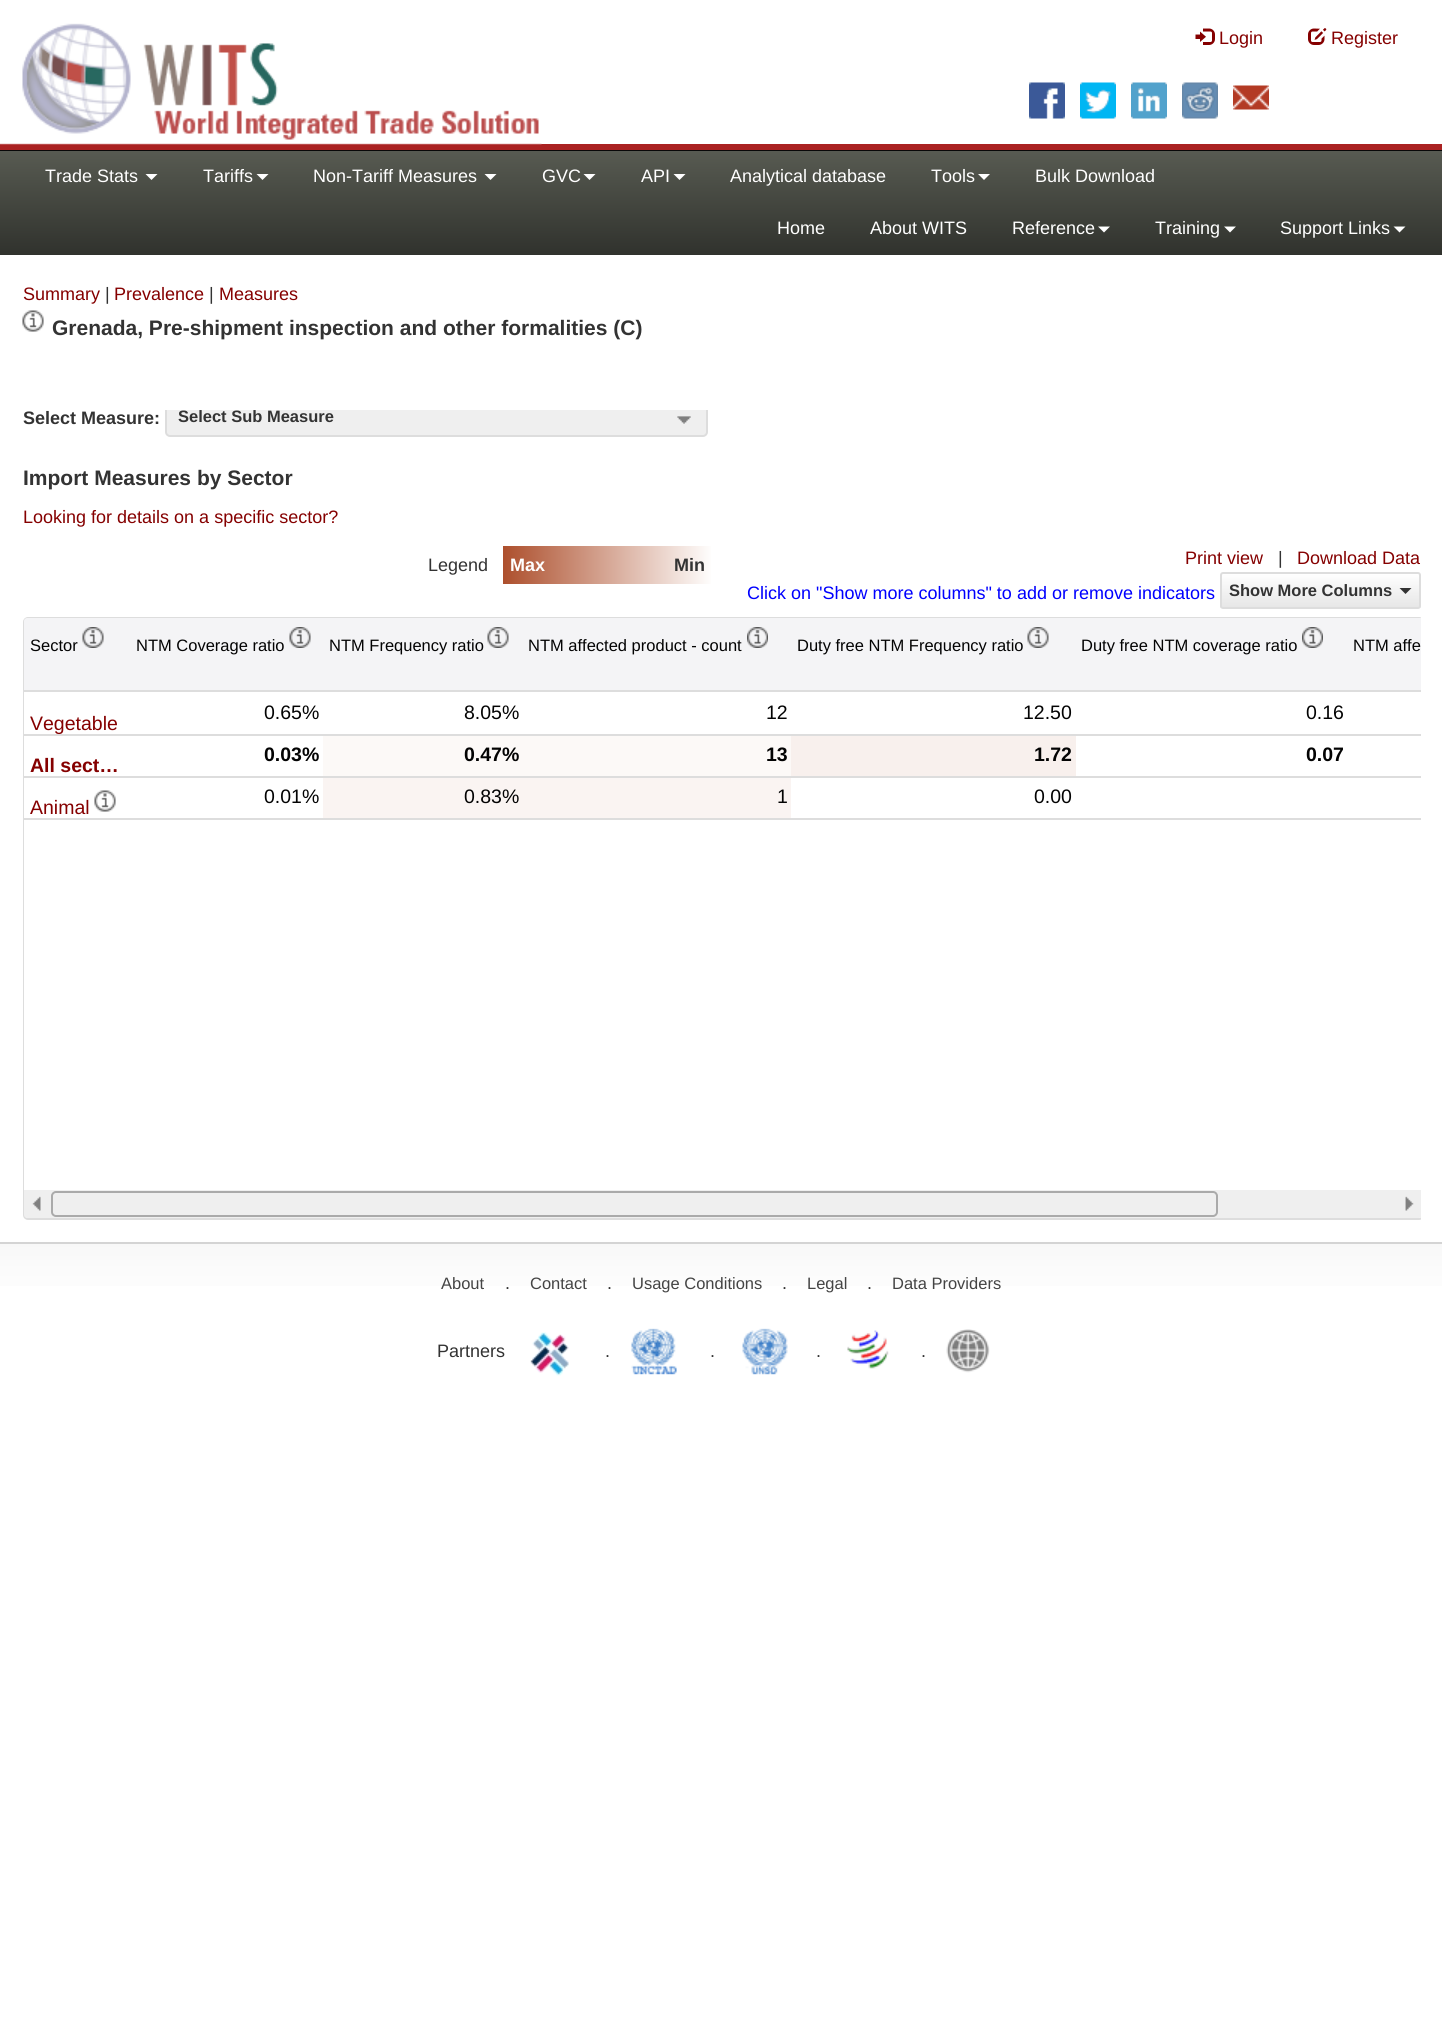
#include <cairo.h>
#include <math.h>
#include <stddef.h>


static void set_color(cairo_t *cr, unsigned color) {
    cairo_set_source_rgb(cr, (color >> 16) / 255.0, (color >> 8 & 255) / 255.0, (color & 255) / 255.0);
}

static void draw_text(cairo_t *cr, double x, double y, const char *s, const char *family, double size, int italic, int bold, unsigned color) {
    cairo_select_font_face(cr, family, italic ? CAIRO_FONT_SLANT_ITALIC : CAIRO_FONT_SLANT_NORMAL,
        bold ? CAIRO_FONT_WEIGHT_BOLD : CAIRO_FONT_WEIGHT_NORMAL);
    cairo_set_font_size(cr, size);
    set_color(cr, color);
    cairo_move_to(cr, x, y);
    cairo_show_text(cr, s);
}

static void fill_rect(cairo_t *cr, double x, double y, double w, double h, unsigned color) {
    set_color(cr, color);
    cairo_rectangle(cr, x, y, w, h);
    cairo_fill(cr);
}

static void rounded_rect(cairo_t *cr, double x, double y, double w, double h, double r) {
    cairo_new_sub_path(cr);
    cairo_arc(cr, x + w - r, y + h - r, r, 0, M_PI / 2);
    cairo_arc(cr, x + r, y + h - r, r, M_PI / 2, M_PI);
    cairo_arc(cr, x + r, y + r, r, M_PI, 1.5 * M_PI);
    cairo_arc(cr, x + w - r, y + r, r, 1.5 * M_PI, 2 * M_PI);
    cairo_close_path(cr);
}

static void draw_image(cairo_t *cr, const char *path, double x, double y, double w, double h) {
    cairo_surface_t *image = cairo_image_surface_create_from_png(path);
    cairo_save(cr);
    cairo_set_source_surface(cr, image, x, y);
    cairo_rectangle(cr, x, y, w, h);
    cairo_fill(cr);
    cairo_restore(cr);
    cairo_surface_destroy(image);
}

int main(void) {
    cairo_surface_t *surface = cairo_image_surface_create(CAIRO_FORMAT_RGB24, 1442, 2041);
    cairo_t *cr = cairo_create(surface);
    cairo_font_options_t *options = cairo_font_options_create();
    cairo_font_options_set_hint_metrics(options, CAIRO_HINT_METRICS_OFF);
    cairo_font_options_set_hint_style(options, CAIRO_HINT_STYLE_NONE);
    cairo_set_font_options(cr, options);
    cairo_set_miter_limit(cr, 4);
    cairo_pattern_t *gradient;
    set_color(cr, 0xFFFFFF);
    cairo_paint(cr);
    fill_rect(cr, 0, 150, 1442, 1, 0x080808);
    fill_rect(cr, 0, 144, 1442, 6, 0xAA2222);
    draw_image(cr, "assets/img1.png", 0, 23, 542, 122);
    draw_image(cr, "assets/img2.png", 1195, 28, 20, 17);
    draw_text(cr, 1219, 44, "Login", "Liberation Sans", 18, 0, 0, 0x850000);
    draw_image(cr, "assets/img3.png", 1308, 28, 19, 17);
    draw_text(cr, 1331, 44, "Register", "Liberation Sans", 18, 0, 0, 0x850000);
    draw_image(cr, "assets/img4.png", 1029, 82, 36, 37);
    draw_image(cr, "assets/img5.png", 1080, 82, 36, 37);
    draw_image(cr, "assets/img6.png", 1131, 82, 36, 37);
    draw_image(cr, "assets/img7.png", 1182, 82, 36, 37);
    draw_image(cr, "assets/img8.png", 1233, 85, 36, 25);
    gradient = cairo_pattern_create_linear(722, 150, 722, 255);
    cairo_pattern_add_color_stop_rgba(gradient, 0, 0.345, 0.357, 0.322, 1);
    cairo_pattern_add_color_stop_rgba(gradient, 1, 0.188, 0.196, 0.176, 1);
    cairo_set_source(cr, gradient);
    cairo_pattern_destroy(gradient);
    cairo_rectangle(cr, 0, 151, 1442, 104);
    cairo_fill(cr);
    draw_text(cr, 45, 182, "Trade Stats", "Liberation Sans", 18, 0, 0, 0xFFFFFF);
    cairo_new_path(cr);
    cairo_move_to(cr, 145.5, 174);
    cairo_line_to(cr, 157.5, 174);
    cairo_line_to(cr, 151.5, 180);
    cairo_close_path(cr);
    cairo_fill(cr);
    draw_text(cr, 203, 182, "Tariffs", "Liberation Sans", 18, 0, 0, 0xFFFFFF);
    cairo_new_path(cr);
    cairo_move_to(cr, 256.5, 174);
    cairo_line_to(cr, 268.5, 174);
    cairo_line_to(cr, 262.5, 180);
    cairo_close_path(cr);
    cairo_fill(cr);
    draw_text(cr, 313, 182, "Non-Tariff Measures", "Liberation Sans", 18, 0, 0, 0xFFFFFF);
    cairo_new_path(cr);
    cairo_move_to(cr, 484.5, 174);
    cairo_line_to(cr, 496.5, 174);
    cairo_line_to(cr, 490.5, 180);
    cairo_close_path(cr);
    cairo_fill(cr);
    draw_text(cr, 542, 182, "GVC", "Liberation Sans", 18, 0, 0, 0xFFFFFF);
    cairo_new_path(cr);
    cairo_move_to(cr, 583.5, 174);
    cairo_line_to(cr, 595.5, 174);
    cairo_line_to(cr, 589.5, 180);
    cairo_close_path(cr);
    cairo_fill(cr);
    draw_text(cr, 641, 182, "API", "Liberation Sans", 18, 0, 0, 0xFFFFFF);
    cairo_new_path(cr);
    cairo_move_to(cr, 673.5, 174);
    cairo_line_to(cr, 685.5, 174);
    cairo_line_to(cr, 679.5, 180);
    cairo_close_path(cr);
    cairo_fill(cr);
    draw_text(cr, 730, 182, "Analytical database", "Liberation Sans", 18, 0, 0, 0xFFFFFF);
    draw_text(cr, 931, 182, "Tools", "Liberation Sans", 18, 0, 0, 0xFFFFFF);
    cairo_new_path(cr);
    cairo_move_to(cr, 978, 174);
    cairo_line_to(cr, 990, 174);
    cairo_line_to(cr, 984, 180);
    cairo_close_path(cr);
    cairo_fill(cr);
    draw_text(cr, 1035, 182, "Bulk Download", "Liberation Sans", 18, 0, 0, 0xFFFFFF);
    draw_text(cr, 777, 234, "Home", "Liberation Sans", 18, 0, 0, 0xFFFFFF);
    draw_text(cr, 870, 234, "About WITS", "Liberation Sans", 18, 0, 0, 0xFFFFFF);
    draw_text(cr, 1012, 234, "Reference", "Liberation Sans", 18, 0, 0, 0xFFFFFF);
    cairo_new_path(cr);
    cairo_move_to(cr, 1098, 226.5);
    cairo_line_to(cr, 1110, 226.5);
    cairo_line_to(cr, 1104, 232.5);
    cairo_close_path(cr);
    cairo_fill(cr);
    draw_text(cr, 1155, 234, "Training", "Liberation Sans", 18, 0, 0, 0xFFFFFF);
    cairo_new_path(cr);
    cairo_move_to(cr, 1224, 226.5);
    cairo_line_to(cr, 1236, 226.5);
    cairo_line_to(cr, 1230, 232.5);
    cairo_close_path(cr);
    cairo_fill(cr);
    draw_text(cr, 1280, 234, "Support Links", "Liberation Sans", 18, 0, 0, 0xFFFFFF);
    cairo_new_path(cr);
    cairo_move_to(cr, 1393.5, 226.5);
    cairo_line_to(cr, 1405.5, 226.5);
    cairo_line_to(cr, 1399.5, 232.5);
    cairo_close_path(cr);
    cairo_fill(cr);
    set_color(cr, 0xEFEFEF);
    rounded_rect(cr, 166, 402, 541, 34, 4);
    cairo_fill_preserve(cr);
    set_color(cr, 0xDDDDDD);
    cairo_stroke(cr);
    fill_rect(cr, 165, 401, 543, 9, 0xFFFFFF);
    draw_text(cr, 23, 300, "Summary", "Liberation Sans", 18, 0, 0, 0x850000);
    draw_text(cr, 105, 300, "|", "Liberation Sans", 18, 0, 0, 0x333333);
    draw_text(cr, 114, 300, "Prevalence", "Liberation Sans", 18, 0, 0, 0x850000);
    draw_text(cr, 209, 300, "|", "Liberation Sans", 18, 0, 0, 0x333333);
    draw_text(cr, 219, 300, "Measures", "Liberation Sans", 18, 0, 0, 0x850000);
    draw_image(cr, "assets/img9.png", 22, 310, 22, 22);
    draw_text(cr, 52, 335, "Grenada, Pre-shipment inspection and other formalities (C)", "Liberation Sans", 21, 0, 1, 0x333333);
    draw_text(cr, 23, 424, "Select Measure:", "Liberation Sans", 18, 0, 1, 0x333333);
    draw_text(cr, 178, 422, "Select Sub Measure", "Liberation Sans", 16.5, 0, 1, 0x333333);
    draw_image(cr, "assets/img10.png", 677, 416, 14, 8);
    draw_text(cr, 23, 485, "Import Measures by Sector", "Liberation Sans", 21, 0, 1, 0x333333);
    draw_text(cr, 23, 523, "Looking for details on a specific sector?", "Liberation Sans", 18, 0, 0, 0x850000);
    draw_text(cr, 428, 571, "Legend", "Liberation Sans", 18, 0, 0, 0x333333);
    gradient = cairo_pattern_create_linear(503, 565, 713, 565);
    cairo_pattern_add_color_stop_rgba(gradient, 0, 0.678, 0.31, 0.173, 1);
    cairo_pattern_add_color_stop_rgba(gradient, 1, 1, 1, 1, 1);
    cairo_set_source(cr, gradient);
    cairo_pattern_destroy(gradient);
    cairo_rectangle(cr, 503, 546, 208, 38);
    cairo_fill(cr);
    draw_text(cr, 510, 571, "Max", "Liberation Sans", 18, 0, 1, 0xFFFFFF);
    draw_text(cr, 674, 571, "Min", "Liberation Sans", 18, 0, 1, 0x333333);
    draw_text(cr, 1185, 564, "Print view", "Liberation Sans", 18, 0, 0, 0x850000);
    draw_text(cr, 1278, 564, "|", "Liberation Sans", 18, 0, 0, 0x333333);
    draw_text(cr, 1297, 564, "Download Data", "Liberation Sans", 18, 0, 0, 0x850000);
    draw_text(cr, 747, 599, "Click on \"Show more columns\" to add or remove indicators", "Liberation Sans", 18, 0, 0, 0x0000FF);
    cairo_save(cr);
    rounded_rect(cr, 1220, 572, 201, 37, 3);
    cairo_clip(cr);
    gradient = cairo_pattern_create_linear(1320, 573, 1320, 608);
    cairo_pattern_add_color_stop_rgba(gradient, 0, 1, 1, 1, 1);
    cairo_pattern_add_color_stop_rgba(gradient, 1, 0.902, 0.902, 0.902, 1);
    cairo_set_source(cr, gradient);
    cairo_pattern_destroy(gradient);
    cairo_rectangle(cr, 1220, 573, 201, 35);
    cairo_fill(cr);
    cairo_restore(cr);
    rounded_rect(cr, 1221, 573, 199, 35, 2);
    set_color(cr, 0xDDDDDD);
    cairo_stroke(cr);
    draw_text(cr, 1229, 596, "Show More Columns", "Liberation Sans", 16.5, 0, 1, 0x333333);
    cairo_new_path(cr);
    cairo_move_to(cr, 1399.5, 588);
    cairo_line_to(cr, 1411.5, 588);
    cairo_line_to(cr, 1405.5, 594);
    cairo_close_path(cr);
    cairo_fill(cr);
    cairo_save(cr);
    cairo_rectangle(cr, 23, 617, 1398, 603);
    cairo_clip(cr);
    rounded_rect(cr, 24, 618, 1399, 601, 4);
    set_color(cr, 0xDDDDDD);
    cairo_stroke(cr);
    cairo_restore(cr);
    set_color(cr, 0xF4F4F6);
    cairo_new_path(cr);
    cairo_move_to(cr, 27, 618);
    cairo_line_to(cr, 131, 618);
    cairo_line_to(cr, 131, 690);
    cairo_line_to(cr, 24, 690);
    cairo_line_to(cr, 24, 621);
    cairo_curve_to(cr, 24, 619.5, 25.5, 618, 27, 618);
    cairo_close_path(cr);
    cairo_fill(cr);
    draw_text(cr, 30, 651, "Sector", "Liberation Sans", 16.5, 0, 0, 0x030303);
    draw_image(cr, "assets/img11.png", 82, 627, 22, 21);
    fill_rect(cr, 131, 618, 1290, 72, 0xF4F4F6);
    draw_text(cr, 136, 651, "NTM Coverage ratio", "Liberation Sans", 16.5, 0, 0, 0x030303);
    draw_image(cr, "assets/img12.png", 289, 627, 22, 21);
    draw_text(cr, 329, 651, "NTM Frequency ratio", "Liberation Sans", 16.5, 0, 0, 0x030303);
    draw_image(cr, "assets/img11.png", 487, 627, 22, 21);
    draw_text(cr, 528, 651, "NTM affected product - count", "Liberation Sans", 16.5, 0, 0, 0x030303);
    draw_image(cr, "assets/img13.png", 747, 627, 21, 21);
    draw_text(cr, 797, 651, "Duty free NTM Frequency ratio", "Liberation Sans", 16.5, 0, 0, 0x030303);
    draw_image(cr, "assets/img11.png", 1027, 627, 22, 21);
    draw_text(cr, 1081, 651, "Duty free NTM coverage ratio", "Liberation Sans", 16.5, 0, 0, 0x030303);
    draw_image(cr, "assets/img14.png", 1302, 627, 21, 21);
    draw_text(cr, 1353, 651, "NTM affe", "Liberation Sans", 16.5, 0, 0, 0x030303);
    fill_rect(cr, 24, 778, 1, 412, 0xFFFFFF);
    fill_rect(cr, 24, 690, 1397, 2, 0xDDDDDD);
    fill_rect(cr, 24, 734, 1397, 2, 0xDDDDDD);
    draw_text(cr, 264, 719, "0.65%", "Liberation Sans", 19.5, 0, 0, 0x030303);
    draw_text(cr, 464, 719, "8.05%", "Liberation Sans", 19.5, 0, 0, 0x030303);
    draw_text(cr, 766, 719, "12", "Liberation Sans", 19.5, 0, 0, 0x030303);
    draw_text(cr, 1023, 719, "12.50", "Liberation Sans", 19.5, 0, 0, 0x030303);
    draw_text(cr, 1306, 719, "0.16", "Liberation Sans", 19.5, 0, 0, 0x030303);
    fill_rect(cr, 24, 692, 1, 42, 0xFFFFFF);
    draw_text(cr, 30, 730, "Vegetable", "Liberation Sans", 19.5, 0, 0, 0x850000);
    draw_text(cr, 264, 761, "0.03%", "Liberation Sans", 19.5, 0, 1, 0x030303);
    fill_rect(cr, 323, 736, 468, 40, 0xFCF9F7);
    draw_text(cr, 464, 761, "0.47%", "Liberation Sans", 19.5, 0, 1, 0x030303);
    draw_text(cr, 766, 761, "13", "Liberation Sans", 19.5, 0, 1, 0x030303);
    fill_rect(cr, 791, 736, 285, 40, 0xF8F0ED);
    draw_text(cr, 1034, 761, "1.72", "Liberation Sans", 19.5, 0, 1, 0x030303);
    draw_text(cr, 1306, 761, "0.07", "Liberation Sans", 19.5, 0, 1, 0x030303);
    fill_rect(cr, 24, 736, 1, 40, 0xFFFFFF);
    draw_text(cr, 30, 772, "All sect…", "Liberation Sans", 19.5, 0, 1, 0x850000);
    fill_rect(cr, 24, 776, 1397, 2, 0xDDDDDD);
    draw_text(cr, 264, 803, "0.01%", "Liberation Sans", 19.5, 0, 0, 0x030303);
    fill_rect(cr, 323, 778, 468, 40, 0xFAF4F2);
    draw_text(cr, 464, 803, "0.83%", "Liberation Sans", 19.5, 0, 0, 0x030303);
    draw_text(cr, 777, 803, "1", "Liberation Sans", 19.5, 0, 0, 0x030303);
    draw_text(cr, 1034, 803, "0.00", "Liberation Sans", 19.5, 0, 0, 0x030303);
    draw_text(cr, 30, 814, "Animal", "Liberation Sans", 19.5, 0, 0, 0x850000);
    draw_image(cr, "assets/img15.png", 94, 790, 22, 22);
    fill_rect(cr, 24, 818, 1397, 2, 0xDDDDDD);
    cairo_save(cr);
    rounded_rect(cr, 24, 618, 1398, 600, 3);
    cairo_clip(cr);
    set_color(cr, 0xEFEFEF);
    cairo_new_path(cr);
    cairo_move_to(cr, 24, 1190);
    cairo_line_to(cr, 1421, 1190);
    cairo_line_to(cr, 1421, 1218);
    cairo_line_to(cr, 27, 1218);
    cairo_curve_to(cr, 25.5, 1218, 24, 1216.5, 24, 1215);
    cairo_close_path(cr);
    cairo_fill(cr);
    cairo_restore(cr);
    draw_image(cr, "assets/img16.png", 32, 1196, 9, 15);
    rounded_rect(cr, 52, 1192, 1165, 24, 4);
    set_color(cr, 0xAAAAAA);
    cairo_stroke(cr);
    draw_image(cr, "assets/img17.png", 1405, 1196, 9, 15);
    gradient = cairo_pattern_create_linear(722, 1243, 722, 1310);
    cairo_pattern_add_color_stop_rgba(gradient, 0, 0.973, 0.973, 0.973, 1);
    cairo_pattern_add_color_stop_rgba(gradient, 1, 1, 1, 1, 1);
    cairo_set_source(cr, gradient);
    cairo_pattern_destroy(gradient);
    cairo_rectangle(cr, 0, 1244, 1442, 42);
    cairo_fill(cr);
    fill_rect(cr, 0, 1242, 1442, 2, 0xD4D4D4);
    draw_text(cr, 441, 1289, "About", "Liberation Sans", 16.5, 0, 0, 0x444444);
    draw_text(cr, 505, 1289, ".", "Liberation Sans", 18, 0, 0, 0x333333);
    draw_text(cr, 530, 1289, "Contact", "Liberation Sans", 16.5, 0, 0, 0x444444);
    draw_text(cr, 607, 1289, ".", "Liberation Sans", 18, 0, 0, 0x333333);
    draw_text(cr, 632, 1289, "Usage Conditions", "Liberation Sans", 16.5, 0, 0, 0x444444);
    draw_text(cr, 782, 1289, ".", "Liberation Sans", 18, 0, 0, 0x333333);
    draw_text(cr, 807, 1289, "Legal", "Liberation Sans", 16.5, 0, 0, 0x444444);
    draw_text(cr, 867, 1289, ".", "Liberation Sans", 18, 0, 0, 0x333333);
    draw_text(cr, 892, 1289, "Data Providers", "Liberation Sans", 16.5, 0, 0, 0x444444);
    draw_text(cr, 437, 1357, "Partners", "Liberation Sans", 18, 0, 0, 0x333333);
    draw_image(cr, "assets/img18.png", 530, 1332, 39, 44);
    draw_text(cr, 605, 1357, ".", "Liberation Sans", 18, 0, 0, 0x333333);
    draw_image(cr, "assets/img19.png", 631, 1328, 46, 47);
    draw_text(cr, 710, 1357, ".", "Liberation Sans", 18, 0, 0, 0x333333);
    draw_image(cr, "assets/img20.png", 742, 1328, 46, 47);
    draw_text(cr, 816, 1357, ".", "Liberation Sans", 18, 0, 0, 0x333333);
    draw_image(cr, "assets/img21.png", 847, 1330, 42, 39);
    draw_text(cr, 921, 1357, ".", "Liberation Sans", 18, 0, 0, 0x333333);
    draw_image(cr, "assets/img22.png", 946, 1329, 44, 44);
    cairo_surface_write_to_png(surface, "output.png");
    cairo_font_options_destroy(options);
    cairo_destroy(cr);
    cairo_surface_destroy(surface);
    return 0;
}
